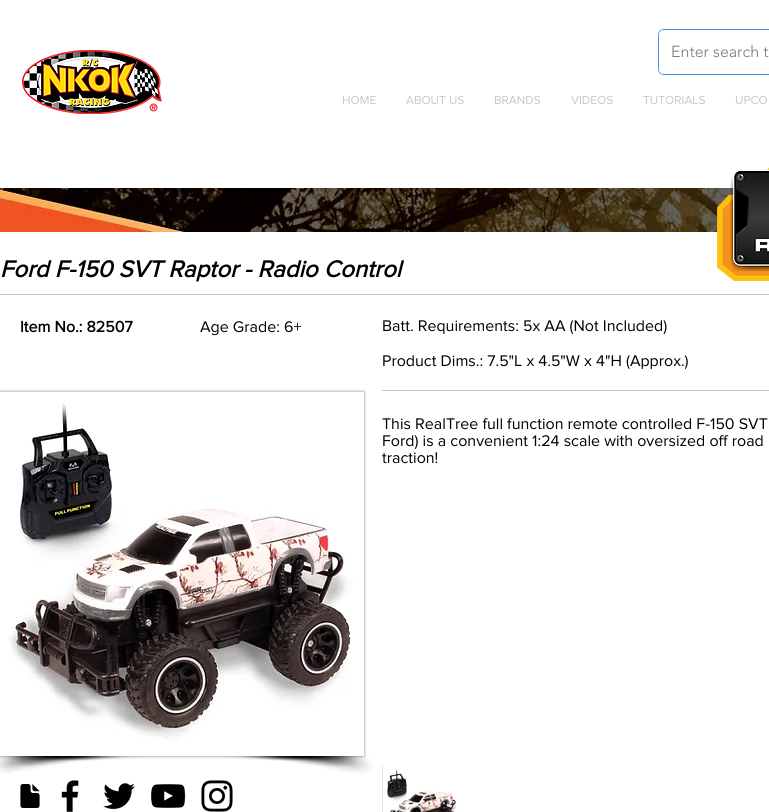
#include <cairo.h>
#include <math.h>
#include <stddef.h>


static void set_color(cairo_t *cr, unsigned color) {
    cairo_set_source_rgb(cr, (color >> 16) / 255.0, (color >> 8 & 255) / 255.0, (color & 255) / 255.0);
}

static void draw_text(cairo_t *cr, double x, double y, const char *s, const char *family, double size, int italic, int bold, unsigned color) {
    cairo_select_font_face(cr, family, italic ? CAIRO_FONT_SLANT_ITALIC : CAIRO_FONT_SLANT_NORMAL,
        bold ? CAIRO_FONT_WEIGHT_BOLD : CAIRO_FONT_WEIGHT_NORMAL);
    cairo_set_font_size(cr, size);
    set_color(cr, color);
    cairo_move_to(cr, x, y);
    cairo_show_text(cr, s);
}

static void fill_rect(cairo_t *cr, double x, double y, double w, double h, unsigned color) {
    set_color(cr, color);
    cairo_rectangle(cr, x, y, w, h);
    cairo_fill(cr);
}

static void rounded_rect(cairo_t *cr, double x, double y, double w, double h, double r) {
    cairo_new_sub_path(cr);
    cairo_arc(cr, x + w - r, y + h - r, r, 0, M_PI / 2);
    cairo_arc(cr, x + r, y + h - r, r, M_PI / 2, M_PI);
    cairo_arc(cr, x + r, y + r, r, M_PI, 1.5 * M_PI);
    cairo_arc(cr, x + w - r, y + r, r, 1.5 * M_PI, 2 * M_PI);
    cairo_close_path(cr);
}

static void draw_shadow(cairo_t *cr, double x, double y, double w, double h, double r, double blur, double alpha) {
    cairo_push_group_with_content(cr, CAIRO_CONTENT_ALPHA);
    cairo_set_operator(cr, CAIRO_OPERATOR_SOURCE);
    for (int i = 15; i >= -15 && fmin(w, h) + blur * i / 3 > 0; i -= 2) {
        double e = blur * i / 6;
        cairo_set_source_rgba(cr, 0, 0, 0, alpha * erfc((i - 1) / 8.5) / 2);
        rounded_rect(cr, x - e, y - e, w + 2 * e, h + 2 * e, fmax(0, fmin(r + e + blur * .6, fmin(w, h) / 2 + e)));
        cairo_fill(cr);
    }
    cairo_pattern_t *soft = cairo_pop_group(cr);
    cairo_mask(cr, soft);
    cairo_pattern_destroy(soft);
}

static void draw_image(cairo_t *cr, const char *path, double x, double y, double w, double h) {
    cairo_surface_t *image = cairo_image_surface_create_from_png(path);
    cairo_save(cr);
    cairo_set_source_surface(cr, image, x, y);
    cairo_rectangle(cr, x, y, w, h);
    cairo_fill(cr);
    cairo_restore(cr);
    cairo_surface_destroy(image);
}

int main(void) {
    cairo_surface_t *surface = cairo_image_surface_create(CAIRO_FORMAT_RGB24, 769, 812);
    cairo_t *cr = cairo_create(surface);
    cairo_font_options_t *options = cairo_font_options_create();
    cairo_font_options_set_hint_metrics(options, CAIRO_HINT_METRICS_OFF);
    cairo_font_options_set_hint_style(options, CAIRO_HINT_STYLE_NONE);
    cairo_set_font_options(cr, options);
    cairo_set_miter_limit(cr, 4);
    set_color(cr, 0xFFFFFF);
    cairo_paint(cr);
    draw_image(cr, "assets/img1.png", 22, 50, 140, 64);
    rounded_rect(cr, 658.5, 29.5, 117, 45, 5.5);
    set_color(cr, 0x3D9BE9);
    cairo_set_line_width(cr, 1);
    cairo_stroke(cr);
    set_color(cr, 0xFFFFFF);
    rounded_rect(cr, 659, 30, 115, 44, 5);
    cairo_fill(cr);
    draw_text(cr, 671, 57, "Enter search t", "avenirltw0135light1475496 Light", 16, 0, 0, 0x787878);
    draw_text(cr, 342, 104, "HOME", "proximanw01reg", 12, 0, 0, 0xC7C7C7);
    draw_text(cr, 406, 104, "ABOUT US", "proximanw01reg", 12, 0, 0, 0xC7C7C7);
    draw_text(cr, 494, 104, "BRANDS", "proximanw01reg", 12, 0, 0, 0xC7C7C7);
    draw_text(cr, 571, 104, "VIDEOS", "proximanw01reg", 12, 0, 0, 0xC7C7C7);
    draw_text(cr, 643, 104, "TUTORIALS", "proximanw01reg", 12, 0, 0, 0xC7C7C7);
    draw_text(cr, 735, 104, "UPCO", "proximanw01reg", 12, 0, 0, 0xC7C7C7);
    draw_image(cr, "assets/img2.png", 0, 188, 736, 44);
    draw_image(cr, "assets/img3.png", 717, 167, 52, 114);
    draw_text(cr, 0, 277, "Ford F-150 SVT Raptor - Radio Control", "proximanw01reg", 24, 1, 1, 0x000000);
    fill_rect(cr, 0, 294, 769, 1, 0xC7C7C7);
    draw_text(cr, 20, 332, "Item No.: 82507", "proximanw01reg", 16, 0, 1, 0x000000);
    draw_text(cr, 200, 332, "Age Grade: 6+", "proximanw01reg", 16, 0, 0, 0x000000);
    draw_text(cr, 382, 331, "Batt. Requirements: 5x AA (Not Included)", "proximanw01reg", 16, 0, 0, 0x000000);
    draw_text(cr, 382, 366, "Product Dims.: 7.5\"L x 4.5\"W x 4\"H (Approx.)", "proximanw01reg", 16, 0, 0, 0x000000);
    set_color(cr, 0x000000);
    draw_shadow(cr, 0, 392, 364, 364, 0, 1.5, 0.5);
    draw_image(cr, "assets/img4.png", 0, 392, 364, 364);
    draw_image(cr, "assets/img5.png", 0, 756, 145, 18);
    draw_image(cr, "assets/img6.png", 219, 756, 154, 18);
    fill_rect(cr, 382, 390, 387, 1, 0xC7C7C7);
    draw_text(cr, 382, 429, "This RealTree full function remote controlled F-150 SVT", "proximanw01reg", 16, 0, 0, 0x000000);
    draw_text(cr, 382, 446, "Ford) is a convenient 1:24 scale with oversized off road", "proximanw01reg", 16, 0, 0, 0x000000);
    draw_text(cr, 382, 463, "traction!", "proximanw01reg", 16, 0, 0, 0x000000);
    set_color(cr, 0xFFFFFF);
    rounded_rect(cr, 9, 771, 41, 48, 7);
    cairo_fill(cr);
    draw_image(cr, "assets/img7.png", 20, 784, 20, 24);
    draw_image(cr, "assets/img8.png", 61, 780, 18, 32);
    draw_image(cr, "assets/img9.png", 103, 783, 32, 27);
    draw_image(cr, "assets/img10.png", 151, 784, 35, 24);
    draw_image(cr, "assets/img11.png", 201, 780, 32, 32);
    fill_rect(cr, 382, 766, 1, 46, 0xE8E6E6);
    draw_image(cr, "assets/img12.png", 383, 766, 76, 46);
    cairo_surface_write_to_png(surface, "output.png");
    cairo_font_options_destroy(options);
    cairo_destroy(cr);
    cairo_surface_destroy(surface);
    return 0;
}
